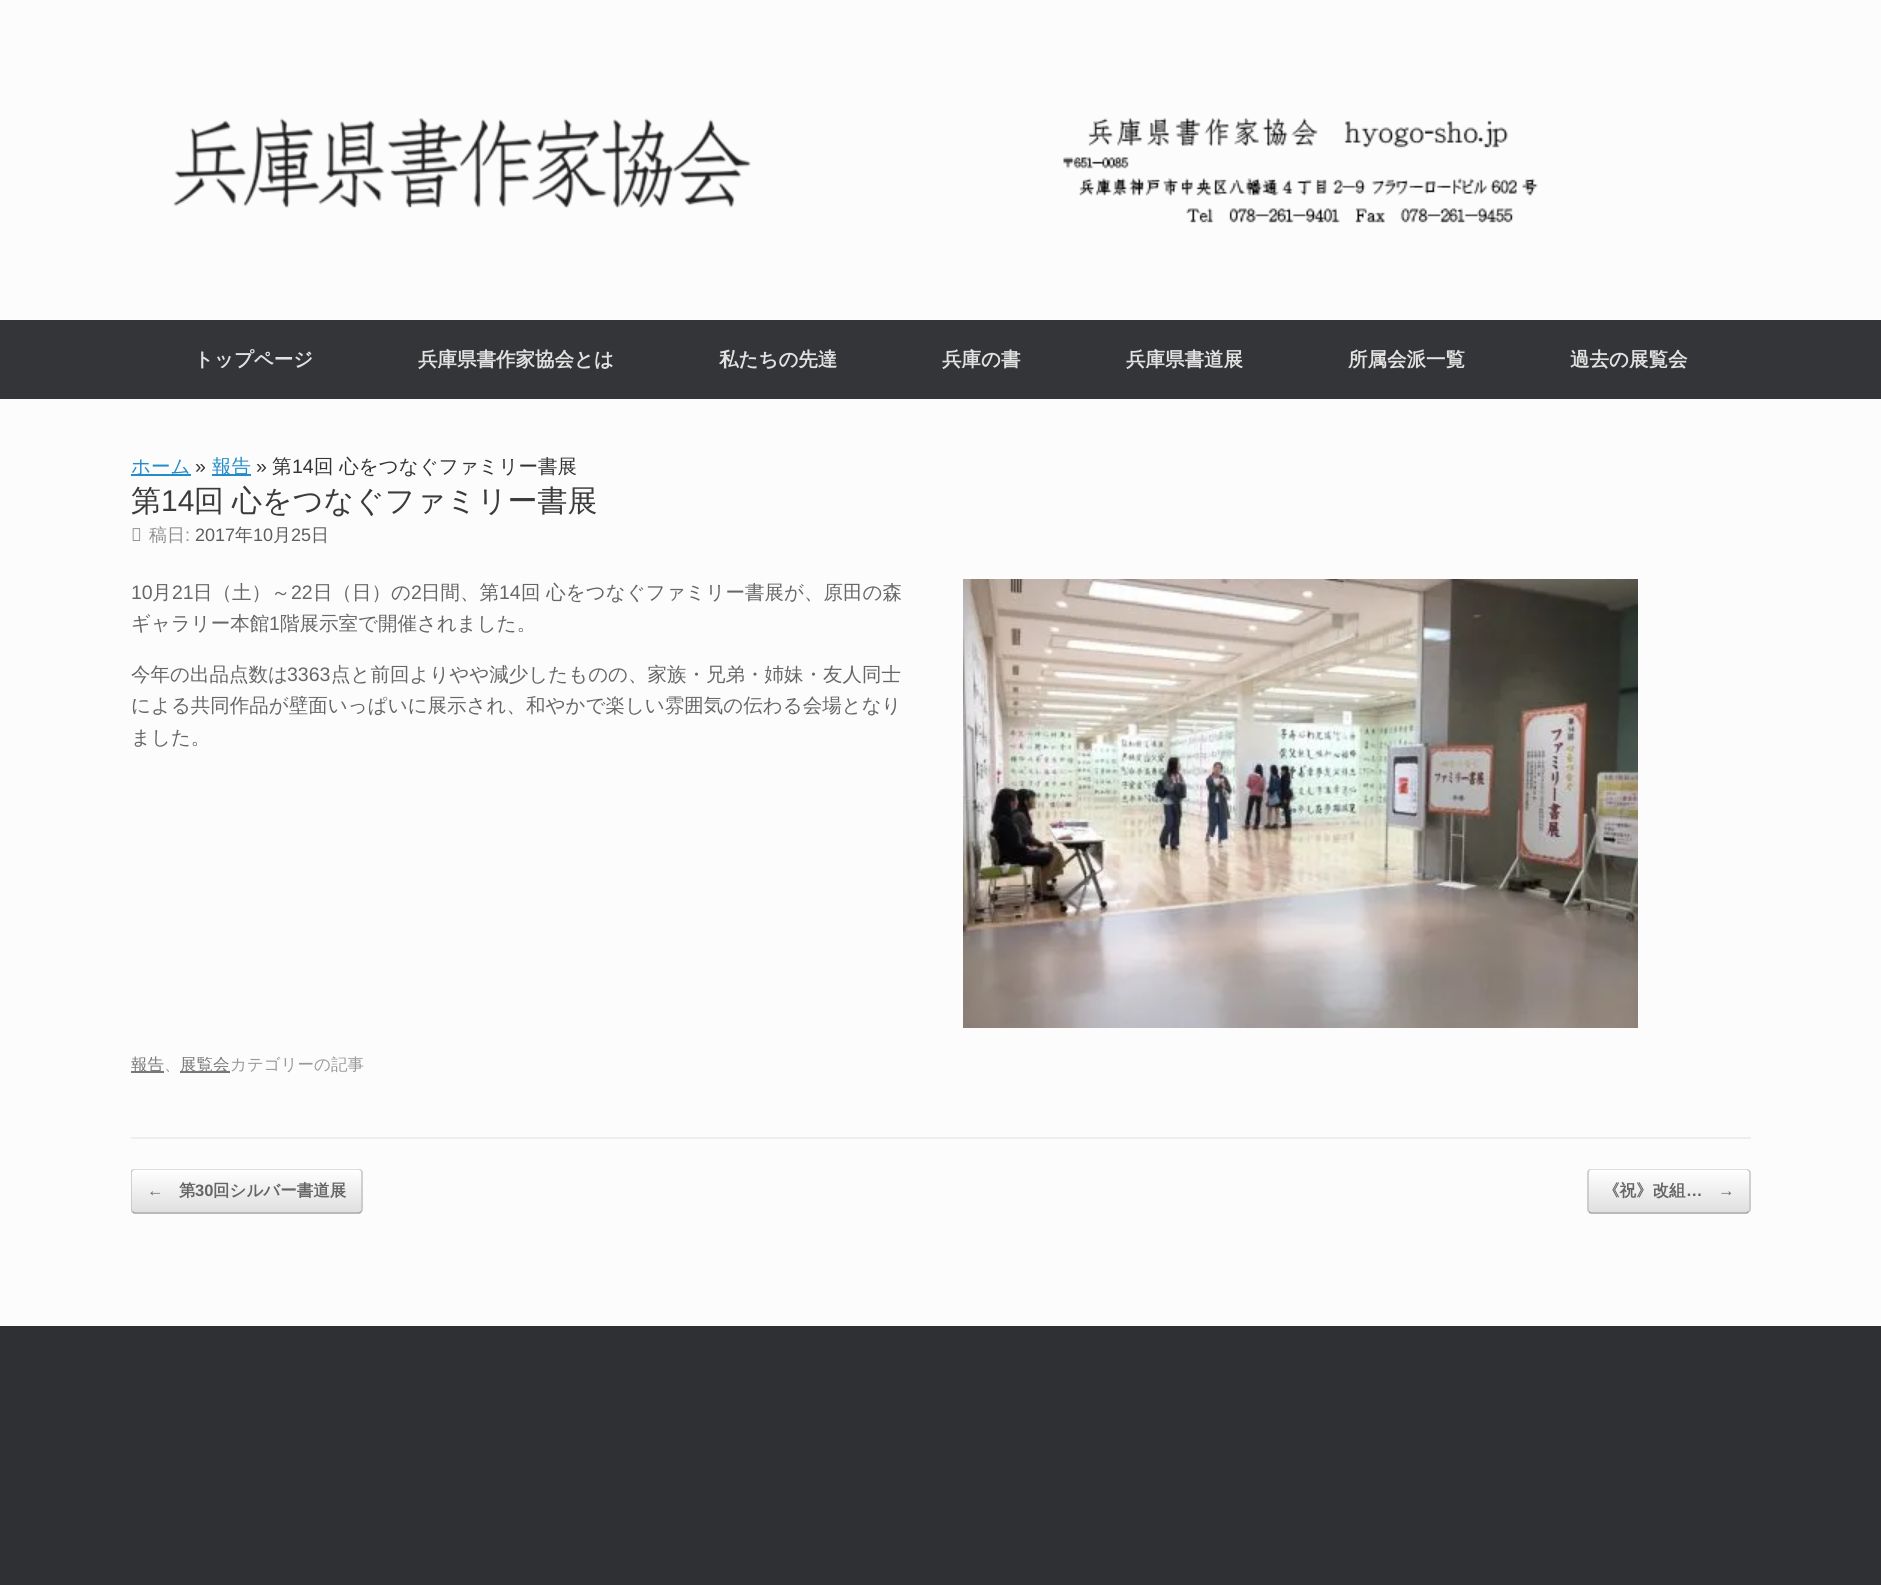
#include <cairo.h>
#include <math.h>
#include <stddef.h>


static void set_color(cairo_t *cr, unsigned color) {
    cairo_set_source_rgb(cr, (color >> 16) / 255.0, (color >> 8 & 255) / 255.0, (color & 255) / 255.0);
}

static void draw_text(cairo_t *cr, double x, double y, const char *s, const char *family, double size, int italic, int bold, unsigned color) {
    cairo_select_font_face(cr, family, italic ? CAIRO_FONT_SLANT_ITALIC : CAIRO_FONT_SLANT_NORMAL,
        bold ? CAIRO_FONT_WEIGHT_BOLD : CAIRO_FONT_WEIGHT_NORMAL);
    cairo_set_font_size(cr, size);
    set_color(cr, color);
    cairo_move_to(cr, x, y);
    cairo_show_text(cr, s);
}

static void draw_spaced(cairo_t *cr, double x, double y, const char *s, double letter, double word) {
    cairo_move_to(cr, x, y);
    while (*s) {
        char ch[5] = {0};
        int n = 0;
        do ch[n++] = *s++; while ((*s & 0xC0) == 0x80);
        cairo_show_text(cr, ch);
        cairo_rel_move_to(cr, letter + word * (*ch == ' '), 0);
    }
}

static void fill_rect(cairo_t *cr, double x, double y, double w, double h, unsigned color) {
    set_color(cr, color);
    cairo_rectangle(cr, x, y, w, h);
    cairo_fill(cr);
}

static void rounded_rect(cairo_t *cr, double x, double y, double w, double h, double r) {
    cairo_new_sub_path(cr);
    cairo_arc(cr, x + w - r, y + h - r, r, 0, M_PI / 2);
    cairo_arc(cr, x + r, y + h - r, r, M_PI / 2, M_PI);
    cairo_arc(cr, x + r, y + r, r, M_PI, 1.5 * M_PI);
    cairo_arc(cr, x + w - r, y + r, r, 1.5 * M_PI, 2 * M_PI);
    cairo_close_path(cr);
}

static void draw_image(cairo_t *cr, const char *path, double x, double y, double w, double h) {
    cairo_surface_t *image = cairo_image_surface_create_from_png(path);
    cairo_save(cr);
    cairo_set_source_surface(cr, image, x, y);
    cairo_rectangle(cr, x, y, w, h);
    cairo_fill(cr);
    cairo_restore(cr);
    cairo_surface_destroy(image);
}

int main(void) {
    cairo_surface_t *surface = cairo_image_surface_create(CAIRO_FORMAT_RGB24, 1881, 1585);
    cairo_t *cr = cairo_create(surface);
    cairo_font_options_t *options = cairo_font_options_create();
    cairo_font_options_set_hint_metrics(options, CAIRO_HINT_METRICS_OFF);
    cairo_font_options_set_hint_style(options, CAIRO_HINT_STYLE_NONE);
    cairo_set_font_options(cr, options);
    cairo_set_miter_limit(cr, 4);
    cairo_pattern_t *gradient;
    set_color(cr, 0x2F3033);
    cairo_paint(cr);
    fill_rect(cr, 0, 0, 1881, 320, 0xFCFCFC);
    draw_image(cr, "assets/img1.png", 173, 118, 1365, 105);
    fill_rect(cr, 0, 320, 1881, 79, 0x343538);
    draw_text(cr, 194, 366, "トップページ", "WenQuanYi Zen Hei", 19.5, 0, 1, 0xE2E2E2);
    draw_text(cr, 418, 366, "兵庫県書作家協会とは", "WenQuanYi Zen Hei", 19.5, 0, 1, 0xE2E2E2);
    draw_text(cr, 719, 366, "私たちの先達", "WenQuanYi Zen Hei", 19.5, 0, 1, 0xE2E2E2);
    draw_text(cr, 942, 366, "兵庫の書", "WenQuanYi Zen Hei", 19.5, 0, 1, 0xE2E2E2);
    draw_text(cr, 1126, 366, "兵庫県書道展", "WenQuanYi Zen Hei", 19.5, 0, 1, 0xE2E2E2);
    draw_text(cr, 1348, 366, "所属会派一覧", "WenQuanYi Zen Hei", 19.5, 0, 1, 0xE2E2E2);
    draw_text(cr, 1570, 366, "過去の展覧会", "WenQuanYi Zen Hei", 19.5, 0, 1, 0xE2E2E2);
    fill_rect(cr, 0, 399, 1881, 927, 0xFCFCFC);
    fill_rect(cr, 131, 474, 60, 2, 0x248CC8);
    draw_text(cr, 131, 473, "ホーム", "WenQuanYi Zen Hei Medium", 19.5, 0, 0, 0x248CC8);
    draw_text(cr, 195, 473, "»", "Liberation Sans", 19.5, 0, 0, 0x333333);
    fill_rect(cr, 212, 474, 39, 2, 0x248CC8);
    draw_text(cr, 212, 473, "報告", "WenQuanYi Zen Hei Medium", 19.5, 0, 0, 0x248CC8);
    draw_text(cr, 256, 473, "»", "Liberation Sans", 19.5, 0, 0, 0x333333);
    draw_text(cr, 272, 473, "第", "WenQuanYi Zen Hei Medium", 19.5, 0, 0, 0x333333);
    draw_text(cr, 292, 473, "14", "Liberation Sans", 19.5, 0, 0, 0x333333);
    draw_text(cr, 314, 473, "回 心をつなぐファミリー書展", "WenQuanYi Zen Hei Medium", 19.5, 0, 0, 0x333333);
    fill_rect(cr, 131, 1137, 1620, 2, 0xEEEEEE);
    draw_text(cr, 131, 511, "第", "WenQuanYi Zen Hei Medium", 30, 0, 0, 0x3B3B3B);
    draw_text(cr, 161, 511, "14", "Liberation Sans", 30, 0, 0, 0x3B3B3B);
    cairo_select_font_face(cr, "WenQuanYi Zen Hei Medium", CAIRO_FONT_SLANT_NORMAL, CAIRO_FONT_WEIGHT_NORMAL);
    draw_spaced(cr, 194, 511, "回 心をつなぐファミリー書展", 0, -1);
    draw_text(cr, 131, 541, "投", "Noto Sans", 18, 0, 0, 0x8F8F8F);
    draw_text(cr, 149, 541, "稿日", "WenQuanYi Zen Hei Medium", 18, 0, 0, 0x8F8F8F);
    draw_text(cr, 185, 541, ":", "Liberation Sans", 18, 0, 0, 0x8F8F8F);
    draw_text(cr, 195, 541, "2017", "Liberation Sans", 18, 0, 0, 0x5E5E5E);
    draw_text(cr, 235, 541, "年", "WenQuanYi Zen Hei Medium", 18, 0, 0, 0x5E5E5E);
    draw_text(cr, 253, 541, "10", "Liberation Sans", 18, 0, 0, 0x5E5E5E);
    draw_text(cr, 273, 541, "月", "WenQuanYi Zen Hei Medium", 18, 0, 0, 0x5E5E5E);
    draw_text(cr, 291, 541, "25", "Liberation Sans", 18, 0, 0, 0x5E5E5E);
    draw_text(cr, 311, 541, "日", "WenQuanYi Zen Hei Medium", 18, 0, 0, 0x5E5E5E);
    draw_text(cr, 131, 599, "10", "Liberation Sans", 19.5, 0, 0, 0x666666);
    draw_text(cr, 152, 599, "月", "WenQuanYi Zen Hei Medium", 19.5, 0, 0, 0x666666);
    draw_text(cr, 172, 599, "21", "Liberation Sans", 19.5, 0, 0, 0x666666);
    draw_text(cr, 193, 599, "日（土）～", "WenQuanYi Zen Hei Medium", 19.5, 0, 0, 0x666666);
    draw_text(cr, 291, 599, "22", "Liberation Sans", 19.5, 0, 0, 0x666666);
    draw_text(cr, 313, 599, "日（日）の", "WenQuanYi Zen Hei Medium", 19.5, 0, 0, 0x666666);
    draw_text(cr, 411, 599, "2", "Liberation Sans", 19.5, 0, 0, 0x666666);
    draw_text(cr, 421, 599, "日間、第", "WenQuanYi Zen Hei Medium", 19.5, 0, 0, 0x666666);
    draw_text(cr, 499, 599, "14", "Liberation Sans", 19.5, 0, 0, 0x666666);
    draw_text(cr, 521, 599, "回 心をつなぐファミリー書展が、原田の森", "WenQuanYi Zen Hei Medium", 19.5, 0, 0, 0x666666);
    draw_text(cr, 131, 630, "ギャラリー本館", "WenQuanYi Zen Hei Medium", 19.5, 0, 0, 0x666666);
    draw_text(cr, 269, 630, "1", "Liberation Sans", 19.5, 0, 0, 0x666666);
    draw_text(cr, 280, 630, "階展示室で開催されました。", "WenQuanYi Zen Hei Medium", 19.5, 0, 0, 0x666666);
    draw_text(cr, 131, 681, "今年の出品点数は", "WenQuanYi Zen Hei Medium", 19.5, 0, 0, 0x666666);
    draw_text(cr, 287, 681, "3363", "Liberation Sans", 19.5, 0, 0, 0x666666);
    draw_text(cr, 331, 681, "点と前回よりやや減少したものの、家族・兄弟・姉妹・友人同士", "WenQuanYi Zen Hei Medium", 19.5, 0, 0, 0x666666);
    draw_text(cr, 131, 712, "による共同作品が壁面いっぱいに展示され、和やかで楽しい雰囲気の伝わる会場となり", "WenQuanYi Zen Hei Medium", 19.5, 0, 0, 0x666666);
    draw_text(cr, 131, 744, "ました。", "WenQuanYi Zen Hei Medium", 19.5, 0, 0, 0x666666);
    draw_image(cr, "assets/img2.png", 963, 579, 675, 449);
    fill_rect(cr, 131, 1071, 33, 2, 0x777777);
    draw_text(cr, 131, 1070, "報告", "WenQuanYi Zen Hei Medium", 16.5, 0, 0, 0x777777);
    draw_text(cr, 164, 1070, "、", "WenQuanYi Zen Hei Medium", 16.5, 0, 0, 0x999999);
    fill_rect(cr, 180, 1071, 50, 2, 0x777777);
    draw_text(cr, 180, 1070, "展覧会", "WenQuanYi Zen Hei Medium", 16.5, 0, 0, 0x777777);
    draw_text(cr, 230, 1070, "カテゴリーの記事", "WenQuanYi Zen Hei Medium", 16.5, 0, 0, 0x999999);
    cairo_save(cr);
    rounded_rect(cr, 131, 1169, 232, 45, 5);
    cairo_clip(cr);
    gradient = cairo_pattern_create_linear(132, 1212, 132, 1170);
    cairo_pattern_add_color_stop_rgba(gradient, 0, 0.875, 0.875, 0.875, 1);
    cairo_pattern_add_color_stop_rgba(gradient, 1, 1, 1, 1, 1);
    cairo_set_source(cr, gradient);
    cairo_pattern_destroy(gradient);
    cairo_rectangle(cr, 131, 1170, 232, 42);
    cairo_fill(cr);
    gradient = cairo_pattern_create_linear(132, 1254, 132, 1212);
    cairo_pattern_add_color_stop_rgba(gradient, 0, 0.875, 0.875, 0.875, 1);
    cairo_pattern_add_color_stop_rgba(gradient, 1, 1, 1, 1, 1);
    cairo_set_source(cr, gradient);
    cairo_pattern_destroy(gradient);
    cairo_rectangle(cr, 131, 1212, 232, 2);
    cairo_fill(cr);
    cairo_restore(cr);
    cairo_save(cr);
    cairo_rectangle(cr, 131, 1169, 1620, 45);
    cairo_clip(cr);
    cairo_new_path(cr);
    cairo_move_to(cr, 132.5, 1170.5);
    cairo_curve_to(cr, 133, 1169.5, 134, 1169, 135, 1169);
    cairo_line_to(cr, 358.5, 1169);
    cairo_curve_to(cr, 359.5, 1169, 360.5, 1169.5, 361, 1170.5);
    set_color(cr, 0xD2D2D2);
    cairo_set_line_width(cr, 1.5);
    cairo_stroke(cr);
    cairo_restore(cr);
    cairo_new_path(cr);
    cairo_move_to(cr, 361, 1170.5);
    cairo_curve_to(cr, 362, 1171, 362, 1172, 362, 1173);
    cairo_line_to(cr, 362, 1209);
    cairo_curve_to(cr, 362, 1210, 362, 1211, 361, 1211.5);
    set_color(cr, 0xC3C3C3);
    cairo_set_line_width(cr, 1.5);
    cairo_stroke(cr);
    cairo_new_path(cr);
    cairo_move_to(cr, 361, 1211.5);
    cairo_curve_to(cr, 360.5, 1212.5, 359.5, 1213, 358.5, 1213);
    cairo_line_to(cr, 135, 1213);
    cairo_curve_to(cr, 134, 1213, 133, 1212.5, 132.5, 1211.5);
    set_color(cr, 0x9F9F9F);
    cairo_stroke(cr);
    cairo_save(cr);
    cairo_rectangle(cr, 131, 1169, 1620, 45);
    cairo_clip(cr);
    cairo_new_path(cr);
    cairo_move_to(cr, 132.5, 1211.5);
    cairo_curve_to(cr, 131.5, 1211, 131, 1210, 131, 1209);
    cairo_line_to(cr, 131, 1173);
    cairo_curve_to(cr, 131, 1172, 131.5, 1171, 132.5, 1170.5);
    set_color(cr, 0xC3C3C3);
    cairo_stroke(cr);
    cairo_restore(cr);
    draw_text(cr, 147, 1196, "←", "Liberation Sans", 16.5, 0, 1, 0x666666);
    draw_text(cr, 179, 1196, "第", "WenQuanYi Zen Hei", 16.5, 0, 1, 0x666666);
    draw_text(cr, 195, 1196, "30", "Liberation Sans", 16.5, 0, 1, 0x666666);
    draw_text(cr, 213, 1196, "回シルバー書道展", "WenQuanYi Zen Hei", 16.5, 0, 1, 0x666666);
    cairo_save(cr);
    rounded_rect(cr, 1587, 1169, 164, 45, 5);
    cairo_clip(cr);
    gradient = cairo_pattern_create_linear(1589, 1212, 1589, 1170);
    cairo_pattern_add_color_stop_rgba(gradient, 0, 0.875, 0.875, 0.875, 1);
    cairo_pattern_add_color_stop_rgba(gradient, 1, 1, 1, 1, 1);
    cairo_set_source(cr, gradient);
    cairo_pattern_destroy(gradient);
    cairo_rectangle(cr, 1587, 1170, 164, 42);
    cairo_fill(cr);
    gradient = cairo_pattern_create_linear(1589, 1254, 1589, 1212);
    cairo_pattern_add_color_stop_rgba(gradient, 0, 0.875, 0.875, 0.875, 1);
    cairo_pattern_add_color_stop_rgba(gradient, 1, 1, 1, 1, 1);
    cairo_set_source(cr, gradient);
    cairo_pattern_destroy(gradient);
    cairo_rectangle(cr, 1587, 1212, 164, 2);
    cairo_fill(cr);
    cairo_restore(cr);
    cairo_save(cr);
    cairo_rectangle(cr, 131, 1169, 1620, 45);
    cairo_clip(cr);
    cairo_new_path(cr);
    cairo_move_to(cr, 1589, 1170.5);
    cairo_curve_to(cr, 1589.5, 1169.5, 1590.5, 1169, 1591.5, 1169);
    cairo_line_to(cr, 1746, 1169);
    cairo_curve_to(cr, 1747, 1169, 1748, 1169.5, 1748.5, 1170.5);
    set_color(cr, 0xD2D2D2);
    cairo_stroke(cr);
    cairo_restore(cr);
    cairo_new_path(cr);
    cairo_move_to(cr, 1748.5, 1170.5);
    cairo_curve_to(cr, 1749.5, 1171, 1750, 1172, 1750, 1173);
    cairo_line_to(cr, 1750, 1209);
    cairo_curve_to(cr, 1750, 1210, 1749.5, 1211, 1748.5, 1211.5);
    set_color(cr, 0xC3C3C3);
    cairo_stroke(cr);
    cairo_new_path(cr);
    cairo_move_to(cr, 1748.5, 1211.5);
    cairo_curve_to(cr, 1748, 1212.5, 1747, 1213, 1746, 1213);
    cairo_line_to(cr, 1591.5, 1213);
    cairo_curve_to(cr, 1590.5, 1213, 1589.5, 1212.5, 1589, 1211.5);
    set_color(cr, 0x9F9F9F);
    cairo_stroke(cr);
    cairo_new_path(cr);
    cairo_move_to(cr, 1589, 1211.5);
    cairo_curve_to(cr, 1588, 1211, 1588, 1210, 1588, 1209);
    cairo_line_to(cr, 1588, 1173);
    cairo_curve_to(cr, 1588, 1172, 1588, 1171, 1589, 1170.5);
    set_color(cr, 0xC3C3C3);
    cairo_stroke(cr);
    draw_text(cr, 1603, 1196, "《祝》改組", "WenQuanYi Zen Hei", 16.5, 0, 1, 0x666666);
    draw_text(cr, 1686, 1196, "…", "Liberation Sans", 16.5, 0, 1, 0x666666);
    draw_text(cr, 1718, 1196, "→", "Liberation Sans", 16.5, 0, 1, 0x666666);
    cairo_surface_write_to_png(surface, "output.png");
    cairo_font_options_destroy(options);
    cairo_destroy(cr);
    cairo_surface_destroy(surface);
    return 0;
}
